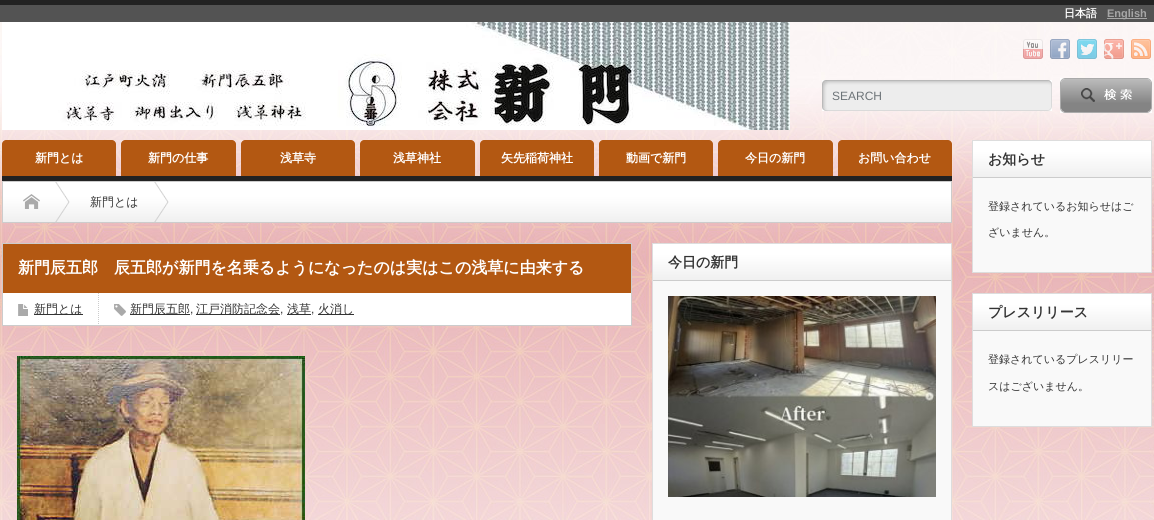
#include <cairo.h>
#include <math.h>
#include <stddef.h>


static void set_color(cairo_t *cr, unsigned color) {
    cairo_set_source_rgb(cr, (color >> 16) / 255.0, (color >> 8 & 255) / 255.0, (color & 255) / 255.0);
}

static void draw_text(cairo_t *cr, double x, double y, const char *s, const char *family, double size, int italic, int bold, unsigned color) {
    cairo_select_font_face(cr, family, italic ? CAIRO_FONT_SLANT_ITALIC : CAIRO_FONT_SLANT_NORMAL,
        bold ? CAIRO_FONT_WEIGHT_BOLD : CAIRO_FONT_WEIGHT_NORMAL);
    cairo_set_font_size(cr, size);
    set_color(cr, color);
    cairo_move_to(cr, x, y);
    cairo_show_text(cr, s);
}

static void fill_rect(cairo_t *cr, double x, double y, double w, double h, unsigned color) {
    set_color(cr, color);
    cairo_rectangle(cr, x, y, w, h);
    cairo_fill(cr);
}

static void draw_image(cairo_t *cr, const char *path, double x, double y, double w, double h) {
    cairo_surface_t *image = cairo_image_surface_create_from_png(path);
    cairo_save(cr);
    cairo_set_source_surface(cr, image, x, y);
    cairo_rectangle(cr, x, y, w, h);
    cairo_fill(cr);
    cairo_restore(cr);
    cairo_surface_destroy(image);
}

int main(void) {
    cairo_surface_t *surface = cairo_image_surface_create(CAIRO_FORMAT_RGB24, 1154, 520);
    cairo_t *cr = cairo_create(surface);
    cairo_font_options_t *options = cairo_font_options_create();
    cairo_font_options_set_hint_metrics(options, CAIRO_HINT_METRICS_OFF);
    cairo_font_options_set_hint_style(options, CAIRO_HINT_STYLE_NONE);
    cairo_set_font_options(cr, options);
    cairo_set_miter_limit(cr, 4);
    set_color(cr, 0xFFFFFF);
    cairo_paint(cr);
    draw_image(cr, "assets/img1.png", 0, 22, 1154, 498);
    fill_rect(cr, 0, 0, 1154, 5, 0x222222);
    fill_rect(cr, 0, 5, 1154, 17, 0x535353);
    draw_text(cr, 1064, 17, "日本語", "WenQuanYi Zen Hei", 11, 0, 1, 0xFFFFFF);
    fill_rect(cr, 1107, 18, 40, 1, 0xA6A6A6);
    draw_text(cr, 1107, 17, "English", "Liberation Sans", 11, 0, 1, 0xA6A6A6);
    draw_image(cr, "assets/img2.png", 2, 22, 788, 108);
    draw_image(cr, "assets/img3.png", 1023, 39, 20, 20);
    draw_image(cr, "assets/img4.png", 1050, 39, 20, 20);
    draw_image(cr, "assets/img5.png", 1077, 39, 20, 20);
    draw_image(cr, "assets/img6.png", 1104, 39, 20, 20);
    draw_image(cr, "assets/img7.png", 1131, 39, 20, 20);
    draw_image(cr, "assets/img8.png", 822, 80, 230, 31);
    draw_text(cr, 832, 100, "SEARCH", "Liberation Sans", 12, 0, 0, 0x6D7478);
    draw_image(cr, "assets/img9.png", 1060, 78, 92, 35);
    fill_rect(cr, 2, 176, 950, 5, 0x222222);
    set_color(cr, 0xB35812);
    cairo_new_path(cr);
    cairo_move_to(cr, 6, 140);
    cairo_line_to(cr, 112, 140);
    cairo_curve_to(cr, 114, 140, 116, 142, 116, 144);
    cairo_line_to(cr, 116, 176);
    cairo_line_to(cr, 2, 176);
    cairo_line_to(cr, 2, 144);
    cairo_curve_to(cr, 2, 142, 4, 140, 6, 140);
    cairo_close_path(cr);
    cairo_fill(cr);
    draw_text(cr, 35, 162, "新門とは", "WenQuanYi Zen Hei", 12, 0, 1, 0xFFFFFF);
    set_color(cr, 0xB35812);
    cairo_new_path(cr);
    cairo_move_to(cr, 125, 140);
    cairo_line_to(cr, 232, 140);
    cairo_curve_to(cr, 234, 140, 236, 142, 236, 144);
    cairo_line_to(cr, 236, 176);
    cairo_line_to(cr, 121, 176);
    cairo_line_to(cr, 121, 144);
    cairo_curve_to(cr, 121, 142, 123, 140, 125, 140);
    cairo_close_path(cr);
    cairo_fill(cr);
    draw_text(cr, 148, 162, "新門の仕事", "WenQuanYi Zen Hei", 12, 0, 1, 0xFFFFFF);
    set_color(cr, 0xB35812);
    cairo_new_path(cr);
    cairo_move_to(cr, 245, 140);
    cairo_line_to(cr, 351, 140);
    cairo_curve_to(cr, 353, 140, 355, 142, 355, 144);
    cairo_line_to(cr, 355, 176);
    cairo_line_to(cr, 241, 176);
    cairo_line_to(cr, 241, 144);
    cairo_curve_to(cr, 241, 142, 243, 140, 245, 140);
    cairo_close_path(cr);
    cairo_fill(cr);
    draw_text(cr, 280, 162, "浅草寺", "WenQuanYi Zen Hei", 12, 0, 1, 0xFFFFFF);
    set_color(cr, 0xB35812);
    cairo_new_path(cr);
    cairo_move_to(cr, 364, 140);
    cairo_line_to(cr, 471, 140);
    cairo_curve_to(cr, 473, 140, 475, 142, 475, 144);
    cairo_line_to(cr, 475, 176);
    cairo_line_to(cr, 360, 176);
    cairo_line_to(cr, 360, 144);
    cairo_curve_to(cr, 360, 142, 362, 140, 364, 140);
    cairo_close_path(cr);
    cairo_fill(cr);
    draw_text(cr, 393, 162, "浅草神社", "WenQuanYi Zen Hei", 12, 0, 1, 0xFFFFFF);
    set_color(cr, 0xB35812);
    cairo_new_path(cr);
    cairo_move_to(cr, 484, 140);
    cairo_line_to(cr, 590, 140);
    cairo_curve_to(cr, 592, 140, 594, 142, 594, 144);
    cairo_line_to(cr, 594, 176);
    cairo_line_to(cr, 480, 176);
    cairo_line_to(cr, 480, 144);
    cairo_curve_to(cr, 480, 142, 482, 140, 484, 140);
    cairo_close_path(cr);
    cairo_fill(cr);
    draw_text(cr, 501, 162, "矢先稲荷神社", "WenQuanYi Zen Hei", 12, 0, 1, 0xFFFFFF);
    set_color(cr, 0xB35812);
    cairo_new_path(cr);
    cairo_move_to(cr, 603, 140);
    cairo_line_to(cr, 709, 140);
    cairo_curve_to(cr, 711, 140, 713, 142, 713, 144);
    cairo_line_to(cr, 713, 176);
    cairo_line_to(cr, 599, 176);
    cairo_line_to(cr, 599, 144);
    cairo_curve_to(cr, 599, 142, 601, 140, 603, 140);
    cairo_close_path(cr);
    cairo_fill(cr);
    draw_text(cr, 626, 162, "動画で新門", "WenQuanYi Zen Hei", 12, 0, 1, 0xFFFFFF);
    set_color(cr, 0xB35812);
    cairo_new_path(cr);
    cairo_move_to(cr, 722, 140);
    cairo_line_to(cr, 829, 140);
    cairo_curve_to(cr, 831, 140, 833, 142, 833, 144);
    cairo_line_to(cr, 833, 176);
    cairo_line_to(cr, 718, 176);
    cairo_line_to(cr, 718, 144);
    cairo_curve_to(cr, 718, 142, 720, 140, 722, 140);
    cairo_close_path(cr);
    cairo_fill(cr);
    draw_text(cr, 745, 162, "今日の新門", "WenQuanYi Zen Hei", 12, 0, 1, 0xFFFFFF);
    set_color(cr, 0xB35812);
    cairo_new_path(cr);
    cairo_move_to(cr, 842, 140);
    cairo_line_to(cr, 948, 140);
    cairo_curve_to(cr, 950, 140, 952, 142, 952, 144);
    cairo_line_to(cr, 952, 176);
    cairo_line_to(cr, 838, 176);
    cairo_line_to(cr, 838, 144);
    cairo_curve_to(cr, 838, 142, 840, 140, 842, 140);
    cairo_close_path(cr);
    cairo_fill(cr);
    draw_text(cr, 858, 162, "お問い合わせ", "WenQuanYi Zen Hei", 12, 0, 1, 0xFFFFFF);
    draw_image(cr, "assets/img10.png", 3, 182, 948, 40);
    cairo_rectangle(cr, 2.5, 181.5, 949, 41);
    set_color(cr, 0xCCCCCC);
    cairo_set_line_width(cr, 1);
    cairo_stroke(cr);
    draw_image(cr, "assets/img11.png", 55, 182, 15, 40);
    draw_image(cr, "assets/img12.png", 23, 194, 17, 15);
    draw_image(cr, "assets/img11.png", 154, 182, 15, 40);
    draw_text(cr, 90, 206, "新門とは", "WenQuanYi Zen Hei Medium", 12, 0, 0, 0x333333);
    cairo_rectangle(cr, 2.5, 243.5, 629, 82);
    set_color(cr, 0xCCCCCC);
    cairo_stroke(cr);
    fill_rect(cr, 3, 244, 628, 49, 0xB35812);
    draw_text(cr, 18, 273, "新門辰五郎　辰五郎が新門を名乗るようになったのは実はこの浅草に由来する", "WenQuanYi Zen Hei", 16, 0, 1, 0xFFFFFF);
    fill_rect(cr, 3, 293, 628, 32, 0xFFFFFF);
    draw_image(cr, "assets/img13.png", 18, 304, 10, 12);
    cairo_new_path(cr);
    cairo_move_to(cr, 98.5, 293);
    cairo_line_to(cr, 98.5, 326);
    set_color(cr, 0xCCCCCC);
    cairo_set_dash(cr, (double[]){1, 1}, 2, 0);
    cairo_stroke(cr);
    fill_rect(cr, 34, 314, 49, 1, 0x333333);
    draw_text(cr, 34, 313, "新門とは", "WenQuanYi Zen Hei Medium", 12, 0, 0, 0x333333);
    draw_image(cr, "assets/img14.png", 114, 304, 12, 12);
    fill_rect(cr, 130, 314, 60, 1, 0x333333);
    draw_text(cr, 130, 313, "新門辰五郎", "WenQuanYi Zen Hei Medium", 12, 0, 0, 0x333333);
    draw_text(cr, 190, 313, ",", "Liberation Sans", 12, 0, 0, 0x333333);
    fill_rect(cr, 196, 314, 84, 1, 0x333333);
    draw_text(cr, 196, 313, "江戸消防記念会", "WenQuanYi Zen Hei Medium", 12, 0, 0, 0x333333);
    draw_text(cr, 280, 313, ",", "Liberation Sans", 12, 0, 0, 0x333333);
    fill_rect(cr, 287, 314, 24, 1, 0x333333);
    draw_text(cr, 287, 313, "浅草", "WenQuanYi Zen Hei Medium", 12, 0, 0, 0x333333);
    draw_text(cr, 311, 313, ",", "Liberation Sans", 12, 0, 0, 0x333333);
    fill_rect(cr, 318, 314, 36, 1, 0x333333);
    draw_text(cr, 318, 313, "火消し", "WenQuanYi Zen Hei Medium", 12, 0, 0, 0x333333);
    draw_image(cr, "assets/img15.png", 17, 356, 288, 164);
    fill_rect(cr, 653, 281, 298, 239, 0xF9F9F9);
    cairo_rectangle(cr, 652.5, 243.5, 299, 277);
    set_color(cr, 0xDDDDDD);
    cairo_set_dash(cr, NULL, 0, 0);
    cairo_stroke(cr);
    draw_image(cr, "assets/img16.png", 653, 244, 298, 36);
    fill_rect(cr, 653, 280, 298, 1, 0xCCCCCC);
    draw_text(cr, 668, 267, "今日の新門", "WenQuanYi Zen Hei", 14, 0, 1, 0x333333);
    draw_image(cr, "assets/img17.png", 668, 296, 268, 201);
    fill_rect(cr, 973, 178, 178, 94, 0xF9F9F9);
    cairo_rectangle(cr, 972.5, 140.5, 179, 132);
    set_color(cr, 0xDDDDDD);
    cairo_stroke(cr);
    draw_image(cr, "assets/img18.png", 973, 141, 178, 36);
    fill_rect(cr, 973, 177, 178, 1, 0xCCCCCC);
    draw_text(cr, 988, 164, "お知らせ", "WenQuanYi Zen Hei", 14, 0, 1, 0x333333);
    draw_text(cr, 988, 210, "登録されているお知らせはご", "WenQuanYi Zen Hei Medium", 11, 0, 0, 0x333333);
    draw_text(cr, 988, 236, "ざいません。", "WenQuanYi Zen Hei Medium", 11, 0, 0, 0x333333);
    fill_rect(cr, 973, 331, 178, 95, 0xF9F9F9);
    cairo_rectangle(cr, 972.5, 293.5, 179, 133);
    set_color(cr, 0xDDDDDD);
    cairo_stroke(cr);
    draw_image(cr, "assets/img18.png", 973, 294, 178, 36);
    fill_rect(cr, 973, 330, 178, 1, 0xCCCCCC);
    draw_text(cr, 988, 317, "プレスリリース", "WenQuanYi Zen Hei", 14, 0, 1, 0x333333);
    draw_text(cr, 988, 363, "登録されているプレスリリー", "WenQuanYi Zen Hei Medium", 11, 0, 0, 0x333333);
    draw_text(cr, 988, 390, "スはございません。", "WenQuanYi Zen Hei Medium", 11, 0, 0, 0x333333);
    cairo_surface_write_to_png(surface, "output.png");
    cairo_font_options_destroy(options);
    cairo_destroy(cr);
    cairo_surface_destroy(surface);
    return 0;
}
